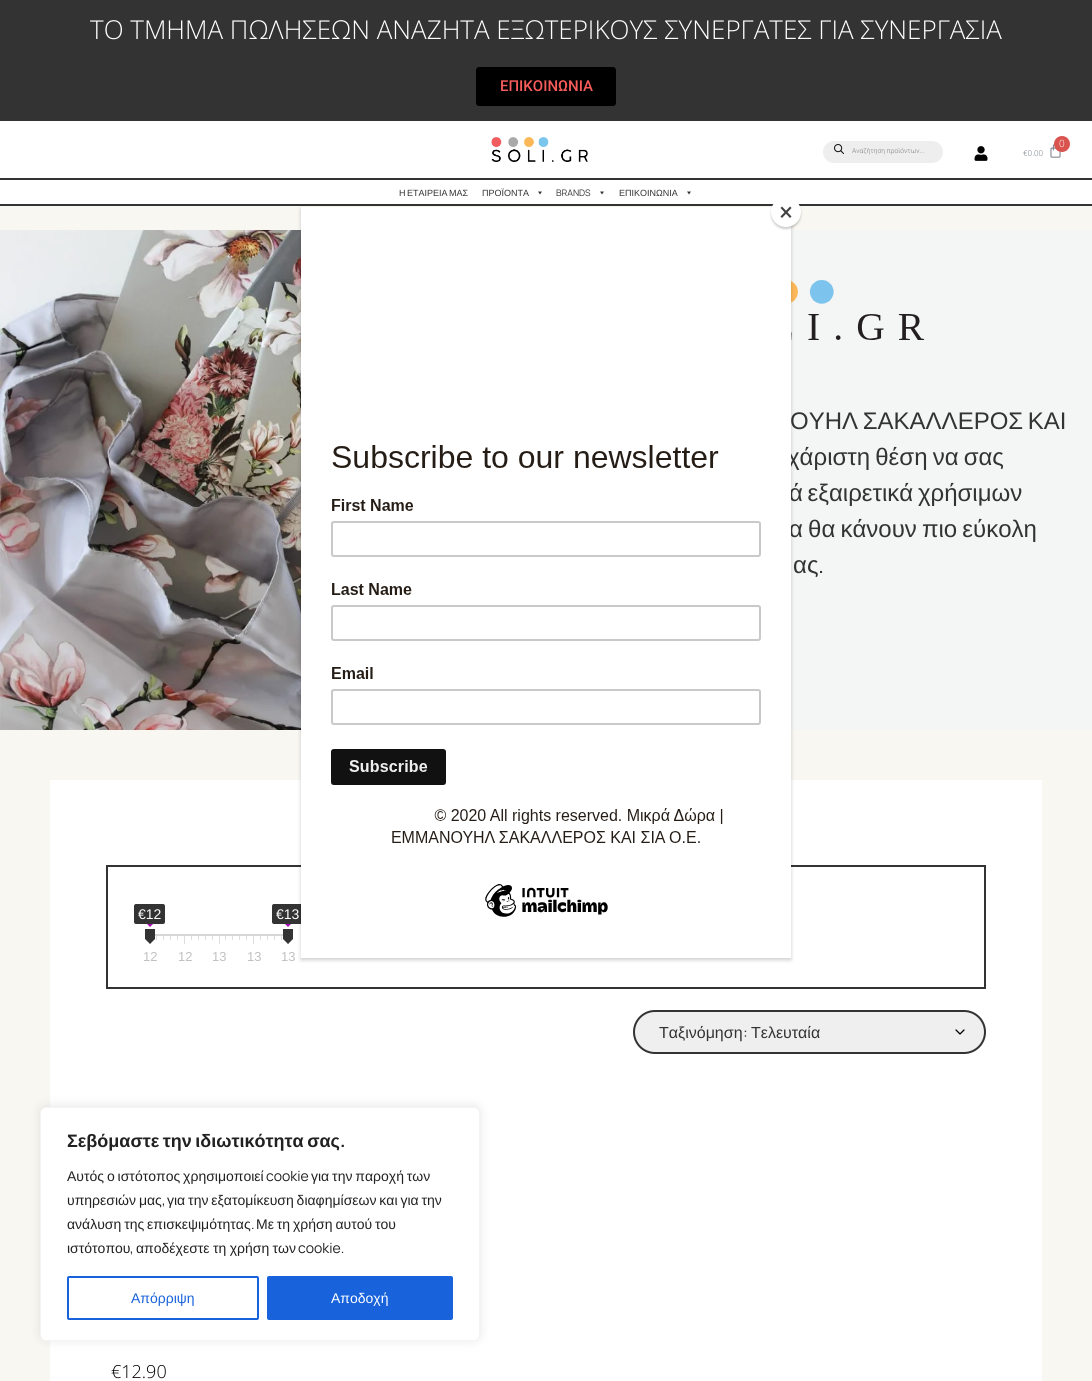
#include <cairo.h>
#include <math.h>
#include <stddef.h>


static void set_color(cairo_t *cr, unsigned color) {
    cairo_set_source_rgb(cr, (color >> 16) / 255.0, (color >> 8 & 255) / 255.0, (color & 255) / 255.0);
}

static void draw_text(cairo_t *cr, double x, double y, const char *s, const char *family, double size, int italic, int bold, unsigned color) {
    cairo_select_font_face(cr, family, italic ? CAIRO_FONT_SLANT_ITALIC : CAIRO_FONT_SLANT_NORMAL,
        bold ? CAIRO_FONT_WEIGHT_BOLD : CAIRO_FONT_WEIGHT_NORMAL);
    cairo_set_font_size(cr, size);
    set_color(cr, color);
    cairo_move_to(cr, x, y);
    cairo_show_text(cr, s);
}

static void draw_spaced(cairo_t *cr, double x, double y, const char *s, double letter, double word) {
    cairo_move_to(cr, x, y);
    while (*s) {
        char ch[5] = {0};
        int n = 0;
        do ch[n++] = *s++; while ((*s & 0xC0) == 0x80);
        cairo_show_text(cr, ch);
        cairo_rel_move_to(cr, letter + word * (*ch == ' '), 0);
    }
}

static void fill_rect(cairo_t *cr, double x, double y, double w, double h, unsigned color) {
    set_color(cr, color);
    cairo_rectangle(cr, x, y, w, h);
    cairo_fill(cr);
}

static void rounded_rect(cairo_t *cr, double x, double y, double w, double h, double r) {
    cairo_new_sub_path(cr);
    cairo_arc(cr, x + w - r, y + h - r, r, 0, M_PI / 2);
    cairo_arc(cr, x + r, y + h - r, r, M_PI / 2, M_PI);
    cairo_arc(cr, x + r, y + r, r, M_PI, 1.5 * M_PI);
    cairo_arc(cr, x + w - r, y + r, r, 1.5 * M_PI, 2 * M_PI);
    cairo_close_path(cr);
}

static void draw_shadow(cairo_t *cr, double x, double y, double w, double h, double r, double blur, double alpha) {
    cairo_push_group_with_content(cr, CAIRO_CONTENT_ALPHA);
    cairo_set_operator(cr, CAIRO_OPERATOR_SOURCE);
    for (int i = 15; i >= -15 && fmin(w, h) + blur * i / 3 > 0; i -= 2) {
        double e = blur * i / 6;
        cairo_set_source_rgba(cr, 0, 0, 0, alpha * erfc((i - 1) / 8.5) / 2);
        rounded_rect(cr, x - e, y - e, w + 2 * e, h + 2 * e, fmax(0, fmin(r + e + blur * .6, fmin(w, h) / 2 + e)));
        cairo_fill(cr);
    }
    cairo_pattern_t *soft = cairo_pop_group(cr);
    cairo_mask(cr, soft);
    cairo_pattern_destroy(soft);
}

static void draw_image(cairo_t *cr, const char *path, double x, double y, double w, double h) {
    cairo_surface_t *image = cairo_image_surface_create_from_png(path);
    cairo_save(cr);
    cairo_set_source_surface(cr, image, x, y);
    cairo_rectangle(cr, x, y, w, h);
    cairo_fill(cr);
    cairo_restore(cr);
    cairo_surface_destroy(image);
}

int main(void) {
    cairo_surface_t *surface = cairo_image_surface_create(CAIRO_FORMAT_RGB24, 1092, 1381);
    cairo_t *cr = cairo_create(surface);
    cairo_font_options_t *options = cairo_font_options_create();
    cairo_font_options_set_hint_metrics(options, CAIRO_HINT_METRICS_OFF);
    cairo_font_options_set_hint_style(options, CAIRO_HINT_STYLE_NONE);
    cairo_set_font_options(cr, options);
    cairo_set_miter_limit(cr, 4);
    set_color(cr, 0xF8F7F2);
    cairo_paint(cr);
    fill_rect(cr, 0, 121, 1092, 57, 0xFFFFFF);
    fill_rect(cr, 0, 0, 1092, 121, 0x333333);
    draw_text(cr, 90, 39, "ΤΟ ΤΜΗΜΑ ΠΩΛΗΣΕΩΝ ΑΝΑΖΗΤΑ ΕΞΩΤΕΡΙΚΟΥΣ ΣΥΝΕΡΓΑΤΕΣ ΓΙΑ ΣΥΝΕΡΓΑΣΙΑ", "Open Sans Light", 26, 0, 0, 0xFFFFFF);
    set_color(cr, 0x000000);
    rounded_rect(cr, 476, 67, 140, 39, 3);
    cairo_fill(cr);
    draw_text(cr, 500, 91, "ΕΠΙΚΟΙΝΩΝΙΑ", "Roboto Medium", 15, 0, 0, 0xF95D5B);
    fill_rect(cr, 0, 178, 1092, 2, 0x333333);
    draw_image(cr, "assets/img1.png", 491, 137, 97, 25);
    set_color(cr, 0xEEEEEE);
    rounded_rect(cr, 823, 141, 120, 22, 11);
    cairo_fill(cr);
    draw_image(cr, "assets/img2.png", 834, 144, 10, 10);
    draw_text(cr, 852, 153, "Αναζήτηση προϊόντων...", "Roboto Light", 6.75, 0, 0, 0x777777);
    draw_image(cr, "assets/img3.png", 974, 146, 14, 15);
    draw_image(cr, "assets/img4.png", 1050, 143, 11, 15);
    set_color(cr, 0xD9534F);
    cairo_arc(cr, 1062, 144, 8, 0, 2 * M_PI);
    cairo_fill(cr);
    draw_text(cr, 1059, 147, "0", "Open Sans Light", 10, 0, 0, 0xFFFFFF);
    draw_text(cr, 1023, 156, "€0.00", "Open Sans Light", 8, 0, 0, 0x69727D);
    fill_rect(cr, 0, 180, 1092, 24, 0xFFFFFF);
    fill_rect(cr, 0, 204, 1092, 2, 0x333333);
    cairo_select_font_face(cr, "Liberation Sans", CAIRO_FONT_SLANT_NORMAL, CAIRO_FONT_WEIGHT_NORMAL);
    cairo_set_font_size(cr, 9);
    draw_spaced(cr, 399, 196, "Η ΕΤΑΙΡΕΙΑ ΜΑΣ", 0, -1);
    draw_text(cr, 482, 196, "ΠΡΟΪΟΝΤΑ", "Liberation Sans", 9, 0, 0, 0x333333);
    cairo_new_path(cr);
    cairo_move_to(cr, 542, 191.5);
    cairo_line_to(cr, 540, 194.5);
    cairo_line_to(cr, 538, 191.5);
    cairo_close_path(cr);
    cairo_fill(cr);
    draw_text(cr, 556, 196, "BRANDS", "Manrope", 9, 0, 0, 0x333333);
    cairo_new_path(cr);
    cairo_move_to(cr, 604, 191.5);
    cairo_line_to(cr, 602, 194.5);
    cairo_line_to(cr, 600, 191.5);
    cairo_close_path(cr);
    cairo_fill(cr);
    draw_text(cr, 619, 196, "ΕΠΙΚΟΙΝΩΝΙΑ", "Liberation Sans", 9, 0, 0, 0x333333);
    cairo_new_path(cr);
    cairo_move_to(cr, 691, 191.5);
    cairo_line_to(cr, 689, 194.5);
    cairo_line_to(cr, 687, 191.5);
    cairo_close_path(cr);
    cairo_fill(cr);
    draw_image(cr, "assets/img6.png", 0, 230, 301, 500);
    fill_rect(cr, 791, 230, 301, 500, 0xF4F5F5);
    draw_image(cr, "assets/img7.png", 791, 280, 134, 60);
    fill_rect(cr, 50, 780, 992, 601, 0xFFFFFF);
    cairo_rectangle(cr, 107, 866, 878, 122);
    set_color(cr, 0x333333);
    cairo_stroke(cr);
    rounded_rect(cr, 272, 904, 31, 20, 2);
    cairo_fill(cr);
    cairo_save(cr);
    cairo_set_fill_rule(cr, CAIRO_FILL_RULE_EVEN_ODD);
    cairo_new_path(cr);
    cairo_move_to(cr, 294, 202);
    cairo_line_to(cr, 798, 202);
    cairo_line_to(cr, 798, 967);
    cairo_line_to(cr, 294, 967);
    cairo_close_path(cr);
    cairo_move_to(cr, 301, 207);
    cairo_line_to(cr, 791, 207);
    cairo_line_to(cr, 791, 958);
    cairo_line_to(cr, 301, 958);
    cairo_close_path(cr);
    cairo_clip(cr);
    set_color(cr, 0x000000);
    draw_shadow(cr, 301, 209, 490, 751, 0, 2, 0.2);
    cairo_restore(cr);
    cairo_set_font_size(cr, 24);
    draw_spaced(cr, 790, 429, "ΟΥΗΛ ΣΑΚΑΛΛΕΡΟΣ ΚΑΙ", 0, -2);
    draw_spaced(cr, 787, 465, "χάριστη θέση να σας", 0, -1.5);
    draw_spaced(cr, 789, 501, "ά εξαιρετικά χρήσιμων", 0, -2);
    draw_spaced(cr, 789, 537, "α θα κάνουν πιο εύκολη", 0, -1.5);
    draw_image(cr, "assets/img5.png", 301, 207, 490, 747);
    set_color(cr, 0x000000);
    draw_shadow(cr, 771, 199, 30, 30, 15, 1, 0.2);
    set_color(cr, 0xFFFFFF);
    cairo_arc(cr, 786, 212, 15, 0, 2 * M_PI);
    cairo_fill(cr);
    set_color(cr, 0x414141);
    cairo_new_path(cr);
    cairo_move_to(cr, 790, 206.5);
    cairo_line_to(cr, 791.5, 208);
    cairo_line_to(cr, 782, 218);
    cairo_line_to(cr, 780.5, 216.5);
    cairo_close_path(cr);
    cairo_fill(cr);
    cairo_new_path(cr);
    cairo_move_to(cr, 780.5, 208);
    cairo_line_to(cr, 782, 206.5);
    cairo_line_to(cr, 791.5, 216.5);
    cairo_line_to(cr, 790, 218);
    cairo_close_path(cr);
    cairo_fill(cr);
    set_color(cr, 0x333333);
    draw_spaced(cr, 793, 573, "ας", 0, -2);
    draw_text(cr, 818, 573, ".", "Manrope", 24, 0, 0, 0x333333);
    rounded_rect(cr, 134, 904, 31, 20, 2);
    cairo_fill(cr);
    draw_text(cr, 138, 919, "€12", "Liberation Sans", 14, 0, 0, 0xFFFFFF);
    set_color(cr, 0xA804B2);
    cairo_new_path(cr);
    cairo_move_to(cr, 147, 924);
    cairo_line_to(cr, 153, 924);
    cairo_line_to(cr, 150, 927);
    cairo_close_path(cr);
    cairo_fill(cr);
    draw_text(cr, 276, 919, "€13", "Liberation Sans", 14, 0, 0, 0xFFFFFF);
    set_color(cr, 0xA804B2);
    cairo_new_path(cr);
    cairo_move_to(cr, 285, 924);
    cairo_line_to(cr, 291, 924);
    cairo_line_to(cr, 288, 927);
    cairo_close_path(cr);
    cairo_fill(cr);
    fill_rect(cr, 150, 934, 138, 2, 0xD6D6D6);
    fill_rect(cr, 150, 936, 1, 8, 0xDEDEDE);
    fill_rect(cr, 145, 929, 10, 10, 0x333333);
    cairo_new_path(cr);
    cairo_move_to(cr, 145, 939);
    cairo_line_to(cr, 155, 939);
    cairo_line_to(cr, 150, 944);
    cairo_close_path(cr);
    cairo_fill(cr);
    fill_rect(cr, 288, 936, 1, 8, 0xDEDEDE);
    fill_rect(cr, 283, 929, 10, 10, 0x333333);
    cairo_new_path(cr);
    cairo_move_to(cr, 283, 939);
    cairo_line_to(cr, 293, 939);
    cairo_line_to(cr, 288, 944);
    cairo_close_path(cr);
    cairo_fill(cr);
    fill_rect(cr, 156, 936, 1, 4, 0xDEDEDE);
    fill_rect(cr, 163, 936, 1, 4, 0xDEDEDE);
    fill_rect(cr, 170, 936, 1, 4, 0xDEDEDE);
    fill_rect(cr, 177, 936, 1, 4, 0xDEDEDE);
    fill_rect(cr, 184, 936, 1, 8, 0xDEDEDE);
    fill_rect(cr, 191, 936, 1, 4, 0xDEDEDE);
    fill_rect(cr, 198, 936, 1, 4, 0xDEDEDE);
    fill_rect(cr, 205, 936, 1, 4, 0xDEDEDE);
    fill_rect(cr, 212, 936, 1, 4, 0xDEDEDE);
    fill_rect(cr, 219, 936, 1, 8, 0xDEDEDE);
    fill_rect(cr, 225, 936, 1, 4, 0xDEDEDE);
    fill_rect(cr, 232, 936, 1, 4, 0xDEDEDE);
    fill_rect(cr, 239, 936, 1, 4, 0xDEDEDE);
    fill_rect(cr, 246, 936, 1, 4, 0xDEDEDE);
    fill_rect(cr, 253, 936, 1, 8, 0xDEDEDE);
    fill_rect(cr, 260, 936, 1, 4, 0xDEDEDE);
    fill_rect(cr, 267, 936, 1, 4, 0xDEDEDE);
    fill_rect(cr, 274, 936, 1, 4, 0xDEDEDE);
    fill_rect(cr, 281, 936, 1, 4, 0xDEDEDE);
    draw_text(cr, 143, 961, "12", "Liberation Sans", 13, 0, 0, 0xC0C0C0);
    draw_text(cr, 178, 961, "12", "Liberation Sans", 13, 0, 0, 0xC0C0C0);
    draw_text(cr, 212, 961, "13", "Liberation Sans", 13, 0, 0, 0xC0C0C0);
    draw_text(cr, 247, 961, "13", "Liberation Sans", 13, 0, 0, 0xC0C0C0);
    draw_text(cr, 281, 961, "13", "Liberation Sans", 13, 0, 0, 0xC0C0C0);
    set_color(cr, 0xEFEFEF);
    rounded_rect(cr, 633, 1010, 353, 44, 22);
    cairo_fill(cr);
    cairo_new_path(cr);
    cairo_move_to(cr, 956, 1030);
    cairo_line_to(cr, 960, 1034);
    cairo_line_to(cr, 964, 1030);
    set_color(cr, 0x000000);
    cairo_set_line_width(cr, 1.3);
    cairo_set_line_cap(cr, CAIRO_LINE_CAP_ROUND);
    cairo_set_line_join(cr, CAIRO_LINE_JOIN_ROUND);
    cairo_stroke(cr);
    rounded_rect(cr, 634, 1011, 351, 42, 21);
    set_color(cr, 0x333333);
    cairo_set_line_width(cr, 2);
    cairo_set_line_cap(cr, CAIRO_LINE_CAP_BUTT);
    cairo_set_line_join(cr, CAIRO_LINE_JOIN_MITER);
    cairo_stroke(cr);
    draw_text(cr, 659, 1038, "Ταξινόμηση", "Liberation Sans", 16, 0, 0, 0x333333);
    draw_text(cr, 743, 1038, ":", "Manrope", 16, 0, 0, 0x333333);
    draw_text(cr, 751, 1038, "Τελευταία", "Liberation Sans", 16, 0, 0, 0x333333);
    draw_text(cr, 111, 1378, "€12.90", "Open Sans Light", 18, 0, 0, 0x000000);
    set_color(cr, 0xACABAB);
    draw_shadow(cr, 40, 1106, 440, 234, 6, 5, 0.3);
    set_color(cr, 0xFFFFFF);
    rounded_rect(cr, 40.5, 1107.5, 439, 233, 5.5);
    cairo_fill_preserve(cr);
    set_color(cr, 0xF4F4F4);
    cairo_set_line_width(cr, 1);
    cairo_stroke(cr);
    cairo_select_font_face(cr, "Liberation Sans", CAIRO_FONT_SLANT_NORMAL, CAIRO_FONT_WEIGHT_BOLD);
    set_color(cr, 0x212121);
    draw_spaced(cr, 67, 1147, "Σεβόμαστε την ιδιωτικότητα σας", 0, -1.5);
    draw_text(cr, 340, 1147, ".", "Manrope", 18, 0, 1, 0x212121);
    cairo_select_font_face(cr, "Liberation Sans", CAIRO_FONT_SLANT_NORMAL, CAIRO_FONT_WEIGHT_NORMAL);
    cairo_set_font_size(cr, 14);
    draw_spaced(cr, 67, 1181, "Αυτός ο ιστότοπος χρησιμοποιεί", 0, -1);
    draw_text(cr, 266, 1181, "cookie", "Manrope", 14, 0, 0, 0x212121);
    cairo_select_font_face(cr, "Liberation Sans", CAIRO_FONT_SLANT_NORMAL, CAIRO_FONT_WEIGHT_NORMAL);
    draw_spaced(cr, 311, 1181, "για την παροχή των", 0, -1);
    draw_spaced(cr, 67, 1205, "υπηρεσιών μας", 0, -1);
    draw_text(cr, 162, 1205, ",", "Manrope", 14, 0, 0, 0x212121);
    cairo_select_font_face(cr, "Liberation Sans", CAIRO_FONT_SLANT_NORMAL, CAIRO_FONT_WEIGHT_NORMAL);
    draw_spaced(cr, 167, 1205, "για την εξατομίκευση διαφημίσεων και για την", 0, -1);
    draw_spaced(cr, 67, 1229, "ανάλυση της επισκεψιμότητας", 0, -1);
    draw_text(cr, 251, 1229, ".", "Manrope", 14, 0, 0, 0x212121);
    cairo_select_font_face(cr, "Liberation Sans", CAIRO_FONT_SLANT_NORMAL, CAIRO_FONT_WEIGHT_NORMAL);
    draw_spaced(cr, 256, 1229, "Με τη χρήση αυτού του", 0, -1);
    draw_text(cr, 67, 1253, "ιστότοπου", "Liberation Sans", 14, 0, 0, 0x212121);
    draw_text(cr, 130, 1253, ",", "Manrope", 14, 0, 0, 0x212121);
    cairo_select_font_face(cr, "Liberation Sans", CAIRO_FONT_SLANT_NORMAL, CAIRO_FONT_WEIGHT_NORMAL);
    draw_spaced(cr, 136, 1253, "αποδέχεστε τη χρήση των", 0, -0.5);
    draw_text(cr, 298, 1253, "cookie.", "Manrope", 14, 0, 0, 0x212121);
    rounded_rect(cr, 68, 1277, 190, 42, 1);
    set_color(cr, 0x1863DC);
    cairo_set_line_width(cr, 2);
    cairo_stroke(cr);
    draw_text(cr, 131, 1303, "Απόρριψη", "Liberation Sans", 14, 0, 0, 0x1863DC);
    rounded_rect(cr, 268, 1277, 184, 42, 1);
    cairo_fill_preserve(cr);
    cairo_stroke(cr);
    draw_text(cr, 331, 1303, "Αποδοχή", "Liberation Sans", 14, 0, 0, 0xFFFFFF);
    cairo_surface_write_to_png(surface, "output.png");
    cairo_font_options_destroy(options);
    cairo_destroy(cr);
    cairo_surface_destroy(surface);
    return 0;
}
